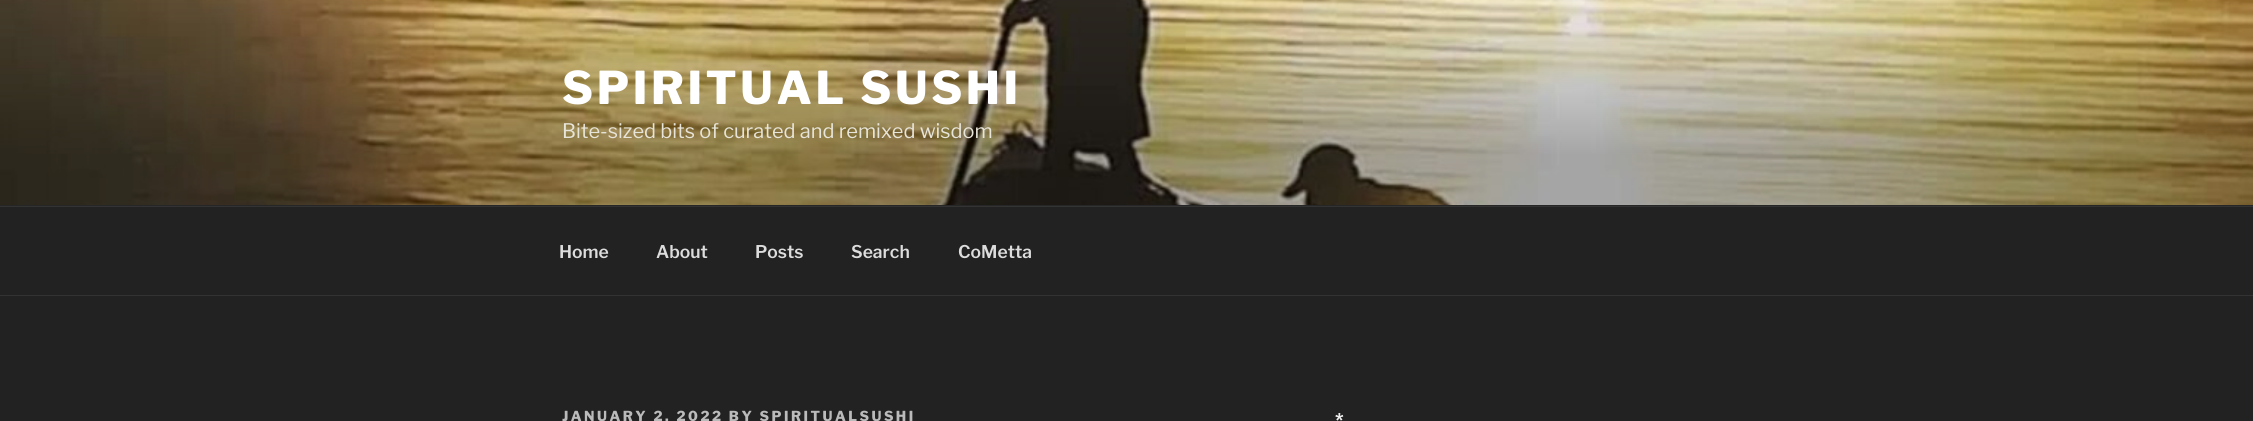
#include <cairo.h>
#include <math.h>
#include <stddef.h>


static void set_color(cairo_t *cr, unsigned color) {
    cairo_set_source_rgb(cr, (color >> 16) / 255.0, (color >> 8 & 255) / 255.0, (color & 255) / 255.0);
}

static void draw_text(cairo_t *cr, double x, double y, const char *s, const char *family, double size, int italic, int bold, unsigned color) {
    cairo_select_font_face(cr, family, italic ? CAIRO_FONT_SLANT_ITALIC : CAIRO_FONT_SLANT_NORMAL,
        bold ? CAIRO_FONT_WEIGHT_BOLD : CAIRO_FONT_WEIGHT_NORMAL);
    cairo_set_font_size(cr, size);
    set_color(cr, color);
    cairo_move_to(cr, x, y);
    cairo_show_text(cr, s);
}

static void draw_spaced(cairo_t *cr, double x, double y, const char *s, double letter, double word) {
    cairo_move_to(cr, x, y);
    while (*s) {
        char ch[5] = {0};
        int n = 0;
        do ch[n++] = *s++; while ((*s & 0xC0) == 0x80);
        cairo_show_text(cr, ch);
        cairo_rel_move_to(cr, letter + word * (*ch == ' '), 0);
    }
}

static void fill_rect(cairo_t *cr, double x, double y, double w, double h, unsigned color) {
    set_color(cr, color);
    cairo_rectangle(cr, x, y, w, h);
    cairo_fill(cr);
}

static void draw_image(cairo_t *cr, const char *path, double x, double y, double w, double h) {
    cairo_surface_t *image = cairo_image_surface_create_from_png(path);
    cairo_save(cr);
    cairo_set_source_surface(cr, image, x, y);
    cairo_rectangle(cr, x, y, w, h);
    cairo_fill(cr);
    cairo_restore(cr);
    cairo_surface_destroy(image);
}

int main(void) {
    cairo_surface_t *surface = cairo_image_surface_create(CAIRO_FORMAT_RGB24, 2253, 421);
    cairo_t *cr = cairo_create(surface);
    cairo_font_options_t *options = cairo_font_options_create();
    cairo_font_options_set_hint_metrics(options, CAIRO_HINT_METRICS_OFF);
    cairo_font_options_set_hint_style(options, CAIRO_HINT_STYLE_NONE);
    cairo_set_font_options(cr, options);
    cairo_set_miter_limit(cr, 4);
    set_color(cr, 0x222222);
    cairo_paint(cr);
    fill_rect(cr, 0, 205, 2253, 1, 0x262626);
    draw_image(cr, "assets/img1.png", 0, 0, 2253, 205);
    cairo_select_font_face(cr, "Libre Franklin Thin", CAIRO_FONT_SLANT_NORMAL, CAIRO_FONT_WEIGHT_NORMAL);
    cairo_set_font_size(cr, 45);
    set_color(cr, 0xFFFFFF);
    draw_spaced(cr, 562, 104, "SPIRITUAL SUSHI", 3.6, 0);
    draw_text(cr, 562, 138, "Bite-sized bits of curated and remixed wisdom", "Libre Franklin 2 Thin", 20, 0, 0, 0xE7E4D9);
    fill_rect(cr, 0, 206, 2253, 1, 0x333333);
    fill_rect(cr, 0, 295, 2253, 1, 0x333333);
    draw_text(cr, 559, 258, "Home", "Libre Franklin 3 Thin", 17.5, 0, 0, 0xDDDDDD);
    draw_text(cr, 656, 258, "About", "Libre Franklin 3 Thin", 17.5, 0, 0, 0xDDDDDD);
    draw_text(cr, 755, 258, "Posts", "Libre Franklin 3 Thin", 17.5, 0, 0, 0xDDDDDD);
    draw_text(cr, 851, 258, "Search", "Libre Franklin 3 Thin", 17.5, 0, 0, 0xDDDDDD);
    draw_text(cr, 958, 258, "CoMetta", "Libre Franklin 3 Thin", 17.5, 0, 0, 0xDDDDDD);
    cairo_select_font_face(cr, "Libre Franklin Thin", CAIRO_FONT_SLANT_NORMAL, CAIRO_FONT_WEIGHT_NORMAL);
    cairo_set_font_size(cr, 13.75);
    set_color(cr, 0xBBBBBB);
    draw_spaced(cr, 562, 421, "JANUARY 2, 2022 BY SPIRITUALSUSHI", 2.5, 0);
    draw_text(cr, 1335, 426, "*", "Libre Franklin Thin", 17.5, 0, 0, 0xEEEEEE);
    cairo_surface_write_to_png(surface, "output.png");
    cairo_font_options_destroy(options);
    cairo_destroy(cr);
    cairo_surface_destroy(surface);
    return 0;
}
